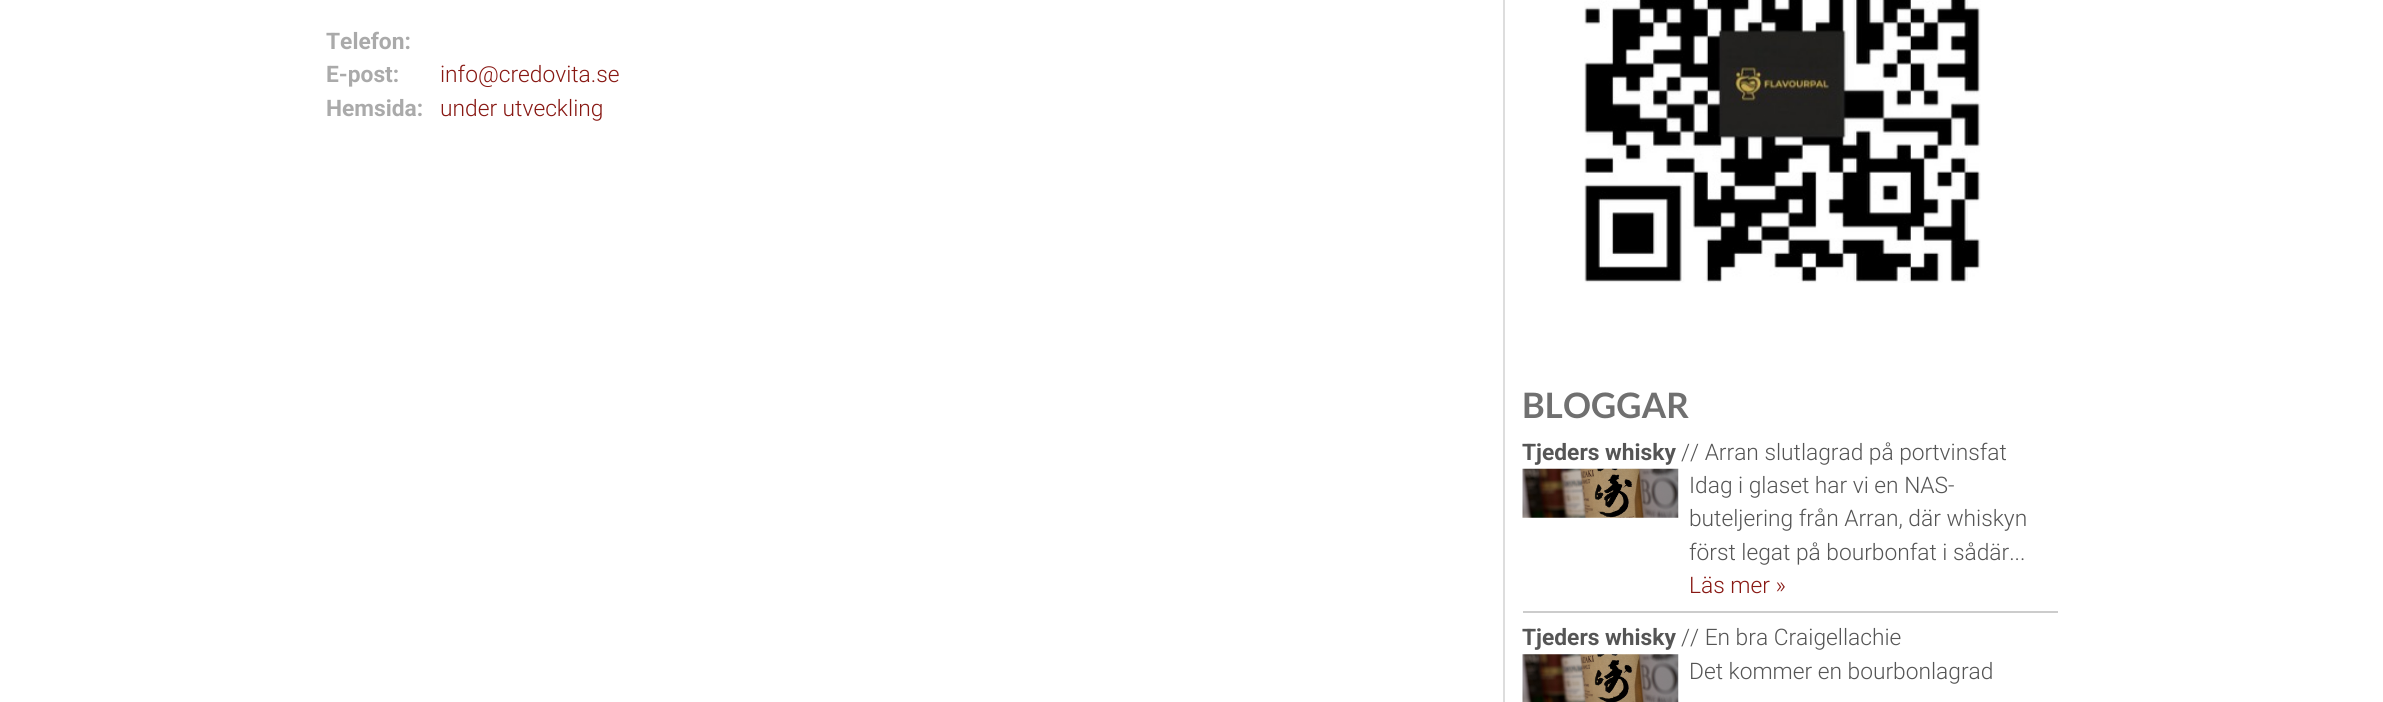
#include <cairo.h>
#include <math.h>
#include <stddef.h>


static void set_color(cairo_t *cr, unsigned color) {
    cairo_set_source_rgb(cr, (color >> 16) / 255.0, (color >> 8 & 255) / 255.0, (color & 255) / 255.0);
}

static void draw_text(cairo_t *cr, double x, double y, const char *s, const char *family, double size, int italic, int bold, unsigned color) {
    cairo_select_font_face(cr, family, italic ? CAIRO_FONT_SLANT_ITALIC : CAIRO_FONT_SLANT_NORMAL,
        bold ? CAIRO_FONT_WEIGHT_BOLD : CAIRO_FONT_WEIGHT_NORMAL);
    cairo_set_font_size(cr, size);
    set_color(cr, color);
    cairo_move_to(cr, x, y);
    cairo_show_text(cr, s);
}

static void fill_rect(cairo_t *cr, double x, double y, double w, double h, unsigned color) {
    set_color(cr, color);
    cairo_rectangle(cr, x, y, w, h);
    cairo_fill(cr);
}

static void draw_image(cairo_t *cr, const char *path, double x, double y, double w, double h) {
    cairo_surface_t *image = cairo_image_surface_create_from_png(path);
    cairo_save(cr);
    cairo_set_source_surface(cr, image, x, y);
    cairo_rectangle(cr, x, y, w, h);
    cairo_fill(cr);
    cairo_restore(cr);
    cairo_surface_destroy(image);
}

int main(void) {
    cairo_surface_t *surface = cairo_image_surface_create(CAIRO_FORMAT_RGB24, 2383, 702);
    cairo_t *cr = cairo_create(surface);
    cairo_font_options_t *options = cairo_font_options_create();
    cairo_font_options_set_hint_metrics(options, CAIRO_HINT_METRICS_OFF);
    cairo_font_options_set_hint_style(options, CAIRO_HINT_STYLE_NONE);
    cairo_set_font_options(cr, options);
    cairo_set_miter_limit(cr, 4);
    set_color(cr, 0xFFFFFF);
    cairo_paint(cr);
    draw_text(cr, 326, 49, "Telefon:", "Roboto", 22.75, 0, 1, 0xAAAAAA);
    draw_text(cr, 326, 82, "E-post:", "Roboto", 22.75, 0, 1, 0xAAAAAA);
    draw_text(cr, 440, 82, "info@credovita.se", "Roboto Light", 22.75, 0, 0, 0x881813);
    draw_text(cr, 326, 116, "Hemsida:", "Roboto", 22.75, 0, 1, 0xAAAAAA);
    draw_text(cr, 440, 116, "under utveckling", "Roboto Light", 22.75, 0, 0, 0x881813);
    fill_rect(cr, 1503, 0, 2, 702, 0xDDDDDD);
    draw_image(cr, "assets/img1.png", 1584, 0, 397, 283);
    draw_text(cr, 1522, 418, "BLOGGAR", "Lato", 35, 0, 1, 0x707070);
    draw_text(cr, 1522, 460, "Tjeders whisky", "Roboto", 22.75, 0, 1, 0x555555);
    draw_text(cr, 1681, 460, "// Arran slutlagrad på portvinsfat", "Roboto Light", 22.75, 0, 0, 0x555555);
    draw_image(cr, "assets/img2.png", 1522, 468, 157, 50);
    draw_text(cr, 1689, 493, "Idag i glaset har vi en NAS-", "Roboto Light", 22.75, 0, 0, 0x555555);
    draw_text(cr, 1689, 526, "buteljering från Arran, där whiskyn", "Roboto Light", 22.75, 0, 0, 0x555555);
    draw_text(cr, 1689, 560, "först legat på bourbonfat i sådär...", "Roboto Light", 22.75, 0, 0, 0x555555);
    draw_text(cr, 1689, 593, "Läs mer »", "Roboto Light", 22.75, 0, 0, 0x881813);
    fill_rect(cr, 1523, 611, 535, 2, 0xCCCCCC);
    draw_text(cr, 1522, 645, "Tjeders whisky", "Roboto", 22.75, 0, 1, 0x555555);
    draw_text(cr, 1681, 645, "// En bra Craigellachie", "Roboto Light", 22.75, 0, 0, 0x555555);
    draw_image(cr, "assets/img3.png", 1522, 654, 157, 48);
    draw_text(cr, 1689, 679, "Det kommer en bourbonlagrad", "Roboto Light", 22.75, 0, 0, 0x555555);
    cairo_surface_write_to_png(surface, "output.png");
    cairo_font_options_destroy(options);
    cairo_destroy(cr);
    cairo_surface_destroy(surface);
    return 0;
}
